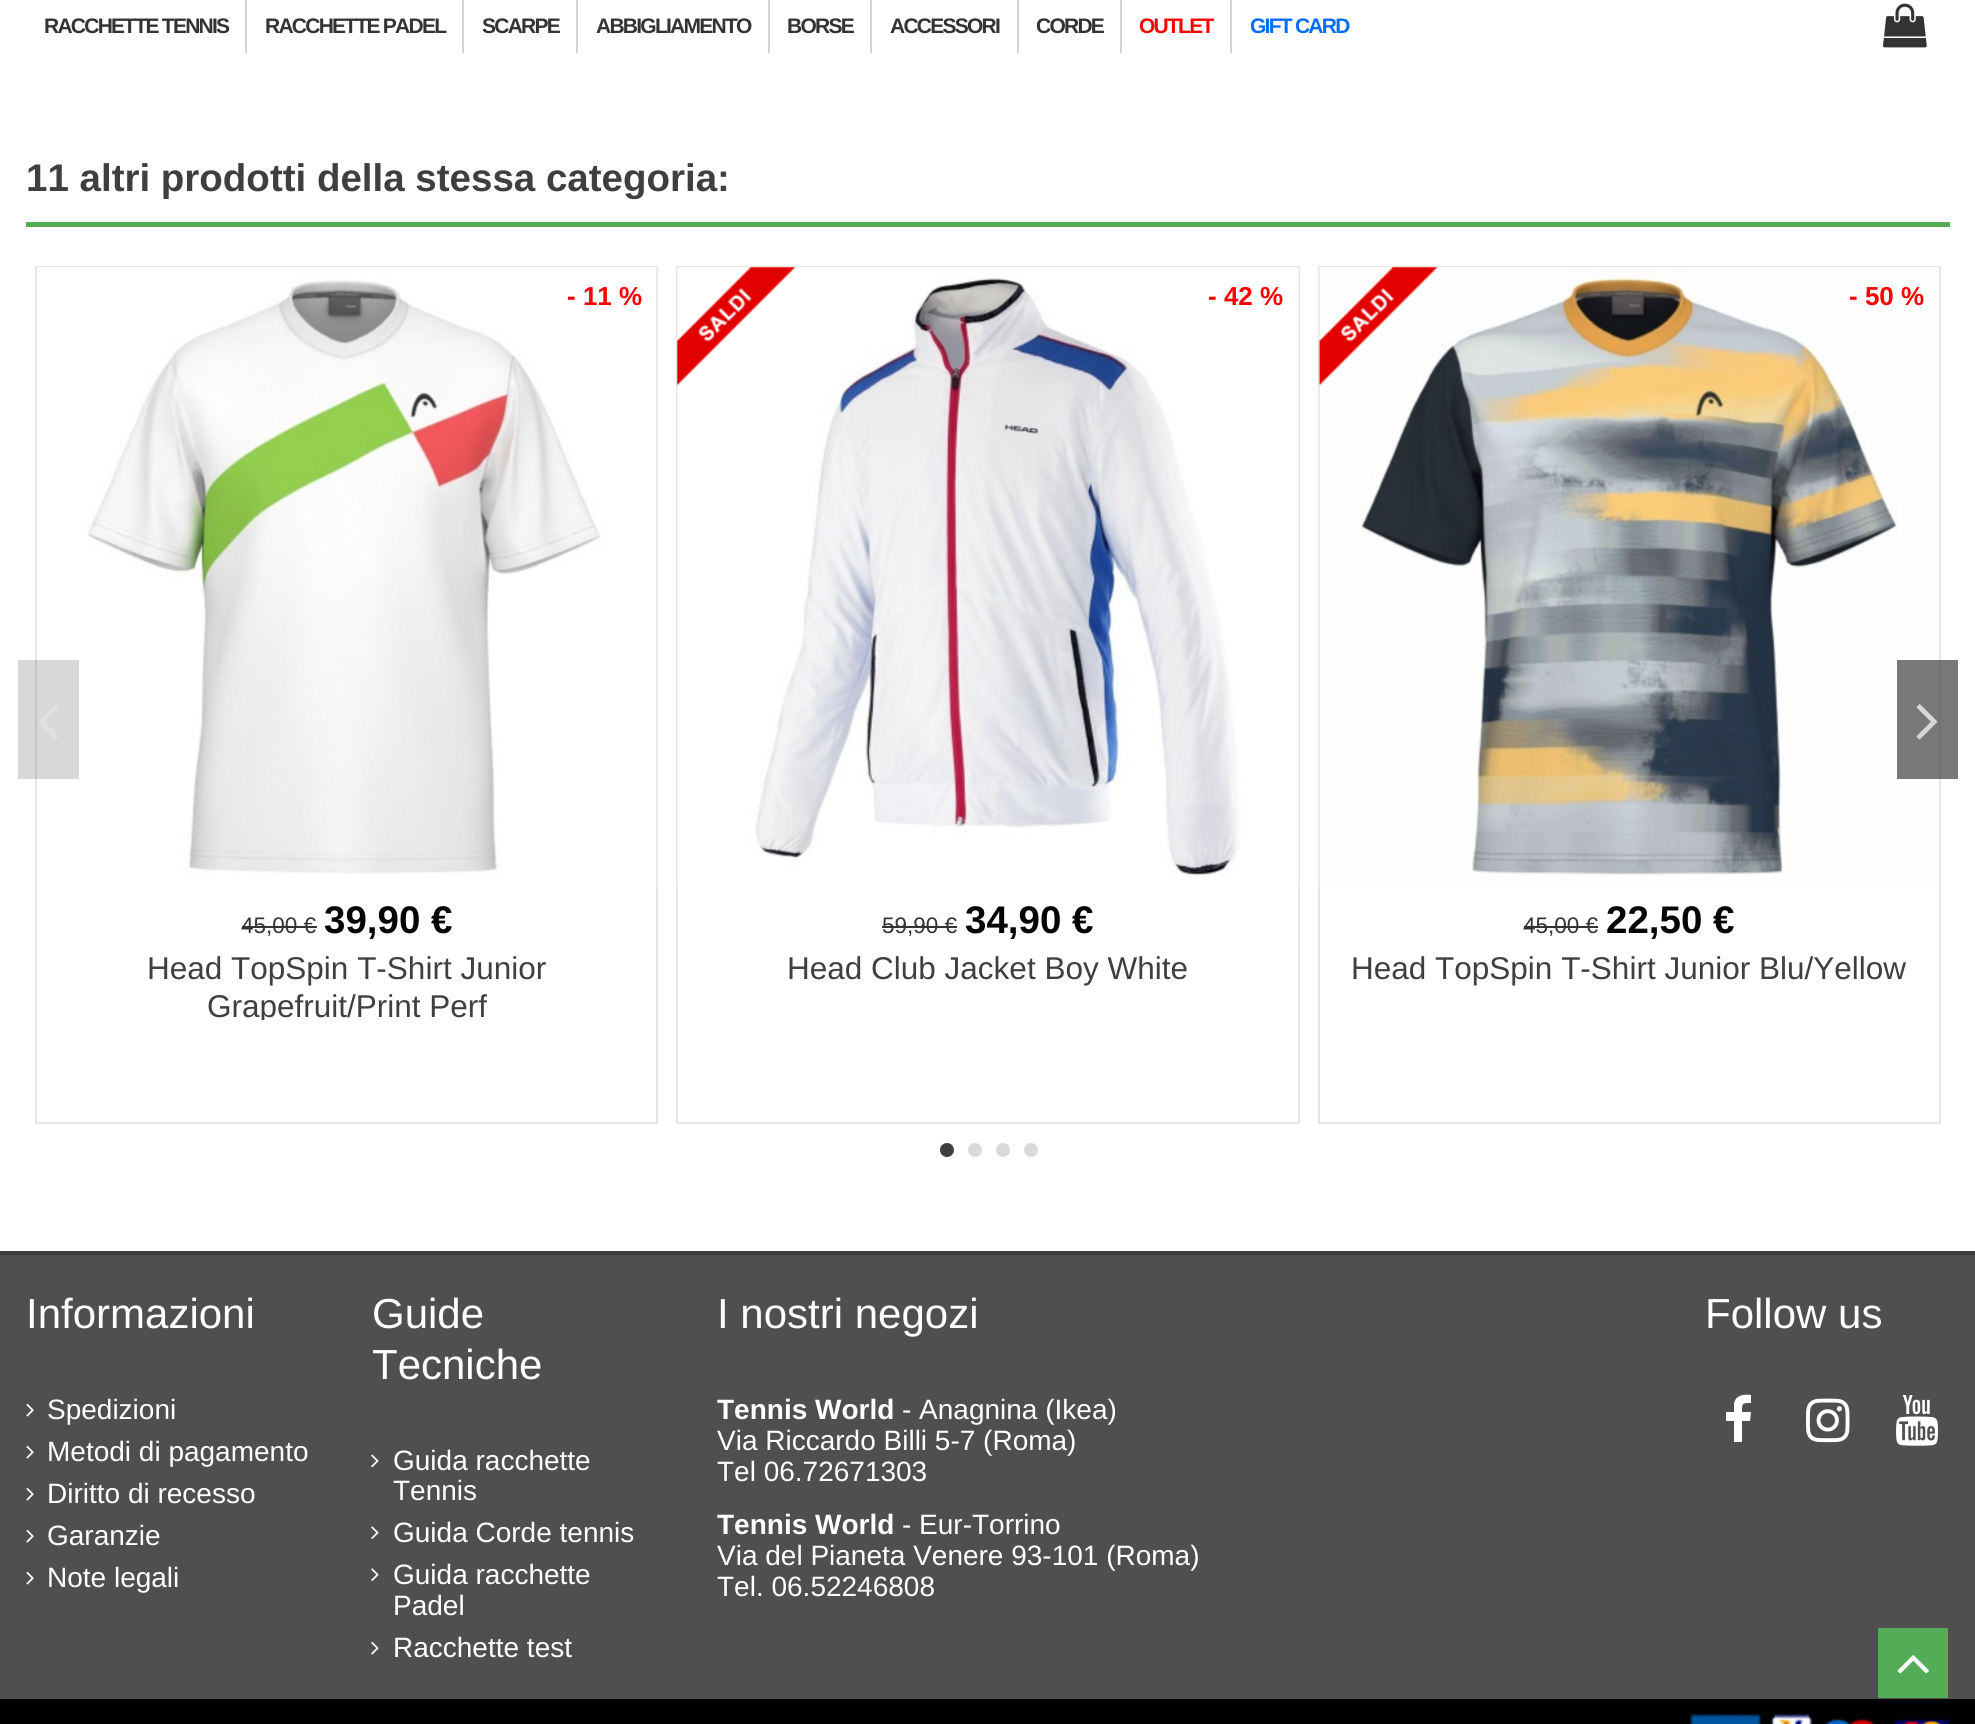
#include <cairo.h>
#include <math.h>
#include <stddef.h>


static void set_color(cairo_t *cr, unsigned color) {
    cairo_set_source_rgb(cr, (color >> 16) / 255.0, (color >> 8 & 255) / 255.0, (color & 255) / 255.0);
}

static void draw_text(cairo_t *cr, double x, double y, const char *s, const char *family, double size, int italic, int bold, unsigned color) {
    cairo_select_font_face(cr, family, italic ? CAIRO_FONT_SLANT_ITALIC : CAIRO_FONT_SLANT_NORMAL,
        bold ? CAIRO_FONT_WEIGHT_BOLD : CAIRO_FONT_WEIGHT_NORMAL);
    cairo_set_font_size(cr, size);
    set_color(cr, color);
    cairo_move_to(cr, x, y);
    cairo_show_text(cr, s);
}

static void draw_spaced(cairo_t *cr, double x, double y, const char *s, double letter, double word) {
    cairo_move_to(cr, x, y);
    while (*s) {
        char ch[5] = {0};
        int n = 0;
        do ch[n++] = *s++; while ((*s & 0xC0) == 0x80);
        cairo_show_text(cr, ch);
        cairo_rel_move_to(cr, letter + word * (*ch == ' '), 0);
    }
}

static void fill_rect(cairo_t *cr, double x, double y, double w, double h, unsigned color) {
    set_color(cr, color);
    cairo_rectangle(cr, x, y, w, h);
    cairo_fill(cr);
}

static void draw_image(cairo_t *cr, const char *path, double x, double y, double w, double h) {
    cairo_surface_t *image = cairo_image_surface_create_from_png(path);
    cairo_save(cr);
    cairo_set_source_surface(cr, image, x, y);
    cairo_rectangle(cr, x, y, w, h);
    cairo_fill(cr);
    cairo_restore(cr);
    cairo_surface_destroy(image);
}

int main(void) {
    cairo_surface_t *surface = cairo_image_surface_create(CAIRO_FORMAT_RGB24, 1975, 1724);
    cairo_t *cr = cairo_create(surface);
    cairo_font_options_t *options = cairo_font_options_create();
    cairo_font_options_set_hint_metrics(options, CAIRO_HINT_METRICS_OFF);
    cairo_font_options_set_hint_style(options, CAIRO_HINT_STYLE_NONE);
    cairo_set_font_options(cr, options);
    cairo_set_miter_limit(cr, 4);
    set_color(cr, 0xFFFFFF);
    cairo_paint(cr);
    cairo_select_font_face(cr, "Liberation Sans", CAIRO_FONT_SLANT_NORMAL, CAIRO_FONT_WEIGHT_BOLD);
    cairo_set_font_size(cr, 21);
    set_color(cr, 0x333333);
    draw_spaced(cr, 44, 33, "RACCHETTE TENNIS", -1.75, 0);
    fill_rect(cr, 245, 0, 2, 53, 0xD3D3D3);
    set_color(cr, 0x333333);
    draw_spaced(cr, 265, 33, "RACCHETTE PADEL", -1.75, 0);
    fill_rect(cr, 462, 0, 2, 53, 0xD3D3D3);
    set_color(cr, 0x333333);
    draw_spaced(cr, 482, 33, "SCARPE", -1.75, 0);
    fill_rect(cr, 576, 0, 2, 53, 0xD3D3D3);
    set_color(cr, 0x333333);
    draw_spaced(cr, 596, 33, "ABBIGLIAMENTO", -1.75, 0);
    fill_rect(cr, 768, 0, 2, 53, 0xD3D3D3);
    set_color(cr, 0x333333);
    draw_spaced(cr, 787, 33, "BORSE", -1.75, 0);
    fill_rect(cr, 870, 0, 2, 53, 0xD3D3D3);
    set_color(cr, 0x333333);
    draw_spaced(cr, 890, 33, "ACCESSORI", -1.75, 0);
    fill_rect(cr, 1017, 0, 2, 53, 0xD3D3D3);
    set_color(cr, 0x333333);
    draw_spaced(cr, 1036, 33, "CORDE", -1.75, 0);
    fill_rect(cr, 1120, 0, 2, 53, 0xD3D3D3);
    set_color(cr, 0xFF0000);
    draw_spaced(cr, 1139, 33, "OUTLET", -1.75, 0);
    fill_rect(cr, 1230, 0, 2, 53, 0xD3D3D3);
    set_color(cr, 0x006EFD);
    draw_spaced(cr, 1250, 33, "GIFT CARD", -1.75, 0);
    draw_image(cr, "assets/img1.png", 1883, 3, 44, 45);
    fill_rect(cr, 26, 222, 1924, 5, 0x54AC56);
    draw_text(cr, 26, 191, "11 altri prodotti della stessa categoria:", "Liberation Sans", 38.5, 0, 1, 0x3F3F3F);
    cairo_rectangle(cr, 36, 267, 621, 856);
    set_color(cr, 0xE2E7E5);
    cairo_stroke(cr);
    draw_image(cr, "assets/img3.png", 37, 267, 620, 620);
    cairo_set_source_rgba(cr, 0.247, 0.247, 0.247, 0.2);
    cairo_rectangle(cr, 18, 660, 61, 119);
    cairo_fill(cr);
    draw_image(cr, "assets/img2.png", 38, 704, 21, 35);
    draw_text(cr, 567, 305, "- 11 %", "Liberation Sans", 26, 0, 1, 0xFF0000);
    draw_text(cr, 241, 933, "45,00 €", "Liberation Sans", 22.5, 0, 0, 0x333333);
    fill_rect(cr, 242, 926, 75, 2, 0x333333);
    draw_text(cr, 324, 933, "39,90 €", "Liberation Sans", 38.5, 0, 1, 0x050505);
    draw_text(cr, 147, 979, "Head TopSpin T-Shirt Junior", "Liberation Sans", 31.5, 0, 0, 0x3F3F3F);
    cairo_save(cr);
    cairo_rectangle(cr, 54, 950, 585, 70);
    cairo_clip(cr);
    draw_text(cr, 207, 1017, "Grapefruit/Print Perf", "Liberation Sans", 31.5, 0, 0, 0x3F3F3F);
    cairo_restore(cr);
    cairo_rectangle(cr, 677, 267, 622, 856);
    set_color(cr, 0xE2E7E5);
    cairo_stroke(cr);
    draw_image(cr, "assets/img4.png", 677, 267, 622, 620);
    draw_image(cr, "assets/img5.png", 677, 267, 119, 119);
    draw_text(cr, 1208, 305, "- 42 %", "Liberation Sans", 26, 0, 1, 0xFF0000);
    draw_text(cr, 882, 933, "59,90 €", "Liberation Sans", 22.5, 0, 0, 0x333333);
    fill_rect(cr, 882, 926, 75, 2, 0x333333);
    draw_text(cr, 965, 933, "34,90 €", "Liberation Sans", 38.5, 0, 1, 0x050505);
    draw_text(cr, 787, 979, "Head Club Jacket Boy White", "Liberation Sans", 31.5, 0, 0, 0x3F3F3F);
    cairo_rectangle(cr, 1319, 267, 621, 856);
    set_color(cr, 0xE2E7E5);
    cairo_stroke(cr);
    draw_image(cr, "assets/img7.png", 1319, 267, 621, 620);
    draw_image(cr, "assets/img6.png", 1318, 267, 120, 119);
    draw_text(cr, 1849, 305, "- 50 %", "Liberation Sans", 26, 0, 1, 0xFF0000);
    draw_text(cr, 1523, 933, "45,00 €", "Liberation Sans", 22.5, 0, 0, 0x333333);
    fill_rect(cr, 1524, 926, 74, 2, 0x333333);
    draw_text(cr, 1606, 933, "22,50 €", "Liberation Sans", 38.5, 0, 1, 0x050505);
    draw_text(cr, 1351, 979, "Head TopSpin T-Shirt Junior Blu/Yellow", "Liberation Sans", 31.5, 0, 0, 0x3F3F3F);
    cairo_set_source_rgba(cr, 0.247, 0.247, 0.247, 0.7);
    cairo_rectangle(cr, 1897, 660, 61, 119);
    cairo_fill(cr);
    draw_image(cr, "assets/img8.png", 1916, 704, 22, 36);
    set_color(cr, 0x3F3F3F);
    cairo_arc(cr, 947, 1150, 7, 0, 2 * M_PI);
    cairo_fill(cr);
    set_color(cr, 0xD9D9D9);
    cairo_arc(cr, 975, 1150, 7, 0, 2 * M_PI);
    cairo_fill(cr);
    cairo_arc(cr, 1003, 1150, 7, 0, 2 * M_PI);
    cairo_fill(cr);
    cairo_arc(cr, 1031, 1150, 7, 0, 2 * M_PI);
    cairo_fill(cr);
    fill_rect(cr, 0, 1255, 1975, 444, 0x4F4F4F);
    fill_rect(cr, 0, 1251, 1975, 4, 0x3B3B3B);
    draw_text(cr, 26, 1328, "Informazioni", "Liberation Sans", 42, 0, 0, 0xFFFFFF);
    draw_image(cr, "assets/img9.png", 26, 1403, 8, 14);
    draw_text(cr, 47, 1419, "Spedizioni", "Liberation Sans", 28, 0, 0, 0xFFFFFF);
    draw_image(cr, "assets/img9.png", 26, 1445, 8, 14);
    draw_text(cr, 47, 1461, "Metodi di pagamento", "Liberation Sans", 28, 0, 0, 0xFFFFFF);
    draw_image(cr, "assets/img9.png", 26, 1487, 8, 14);
    draw_text(cr, 47, 1503, "Diritto di recesso", "Liberation Sans", 28, 0, 0, 0xFFFFFF);
    draw_image(cr, "assets/img9.png", 26, 1529, 8, 14);
    draw_text(cr, 47, 1545, "Garanzie", "Liberation Sans", 28, 0, 0, 0xFFFFFF);
    draw_image(cr, "assets/img9.png", 26, 1571, 8, 14);
    draw_text(cr, 47, 1587, "Note legali", "Liberation Sans", 28, 0, 0, 0xFFFFFF);
    draw_text(cr, 372, 1328, "Guide", "Liberation Sans", 42, 0, 0, 0xFFFFFF);
    draw_text(cr, 372, 1379, "Tecniche", "Liberation Sans", 42, 0, 0, 0xFFFFFF);
    draw_image(cr, "assets/img10.png", 371, 1454, 8, 14);
    draw_text(cr, 393, 1470, "Guida racchette", "Liberation Sans", 28, 0, 0, 0xFFFFFF);
    draw_text(cr, 393, 1500, "Tennis", "Liberation Sans", 28, 0, 0, 0xFFFFFF);
    draw_image(cr, "assets/img11.png", 371, 1526, 8, 13);
    draw_text(cr, 393, 1542, "Guida Corde tennis", "Liberation Sans", 28, 0, 0, 0xFFFFFF);
    draw_image(cr, "assets/img11.png", 371, 1568, 8, 13);
    draw_text(cr, 393, 1584, "Guida racchette", "Liberation Sans", 28, 0, 0, 0xFFFFFF);
    draw_text(cr, 393, 1615, "Padel", "Liberation Sans", 28, 0, 0, 0xFFFFFF);
    draw_image(cr, "assets/img12.png", 371, 1641, 8, 14);
    draw_text(cr, 393, 1657, "Racchette test", "Liberation Sans", 28, 0, 0, 0xFFFFFF);
    draw_text(cr, 717, 1328, "I nostri negozi", "Liberation Sans", 42, 0, 0, 0xFFFFFF);
    draw_text(cr, 717, 1419, "Tennis World", "Liberation Sans", 28, 0, 1, 0xFFFFFF);
    draw_text(cr, 902, 1419, "- Anagnina (Ikea)", "Liberation Sans", 28, 0, 0, 0xFFFFFF);
    draw_text(cr, 717, 1450, "Via Riccardo Billi 5-7 (Roma)", "Liberation Sans", 28, 0, 0, 0xFFFFFF);
    draw_text(cr, 717, 1481, "Tel 06.72671303", "Liberation Sans", 28, 0, 0, 0xFFFFFF);
    draw_text(cr, 717, 1534, "Tennis World", "Liberation Sans", 28, 0, 1, 0xFFFFFF);
    draw_text(cr, 902, 1534, "- Eur-Torrino", "Liberation Sans", 28, 0, 0, 0xFFFFFF);
    draw_text(cr, 717, 1565, "Via del Pianeta Venere 93-101 (Roma)", "Liberation Sans", 28, 0, 0, 0xFFFFFF);
    draw_text(cr, 717, 1596, "Tel. 06.52246808", "Liberation Sans", 28, 0, 0, 0xFFFFFF);
    draw_text(cr, 1705, 1328, "Follow us", "Liberation Sans", 42, 0, 0, 0xFFFFFF);
    cairo_new_path(cr);
    cairo_move_to(cr, 1751, 1395);
    cairo_line_to(cr, 1751, 1403);
    cairo_curve_to(cr, 1742, 1403, 1742, 1403, 1742, 1412);
    cairo_line_to(cr, 1751, 1412);
    cairo_line_to(cr, 1750, 1421);
    cairo_line_to(cr, 1742, 1421);
    cairo_line_to(cr, 1742, 1442);
    cairo_line_to(cr, 1734, 1442);
    cairo_line_to(cr, 1734, 1421);
    cairo_line_to(cr, 1726, 1421);
    cairo_line_to(cr, 1726, 1412);
    cairo_line_to(cr, 1734, 1412);
    cairo_line_to(cr, 1734, 1404);
    cairo_curve_to(cr, 1735, 1395, 1744, 1394, 1751, 1395);
    cairo_close_path(cr);
    cairo_fill(cr);
    draw_image(cr, "assets/img13.png", 1806, 1398, 44, 45);
    draw_image(cr, "assets/img14.png", 1896, 1395, 42, 51);
    fill_rect(cr, 0, 1699, 1975, 25, 0x000000);
    draw_image(cr, "assets/img15.png", 1690, 1714, 260, 10);
    fill_rect(cr, 1878, 1628, 70, 70, 0x54AC56);
    draw_image(cr, "assets/img16.png", 1897, 1655, 32, 19);
    cairo_surface_write_to_png(surface, "output.png");
    cairo_font_options_destroy(options);
    cairo_destroy(cr);
    cairo_surface_destroy(surface);
    return 0;
}
